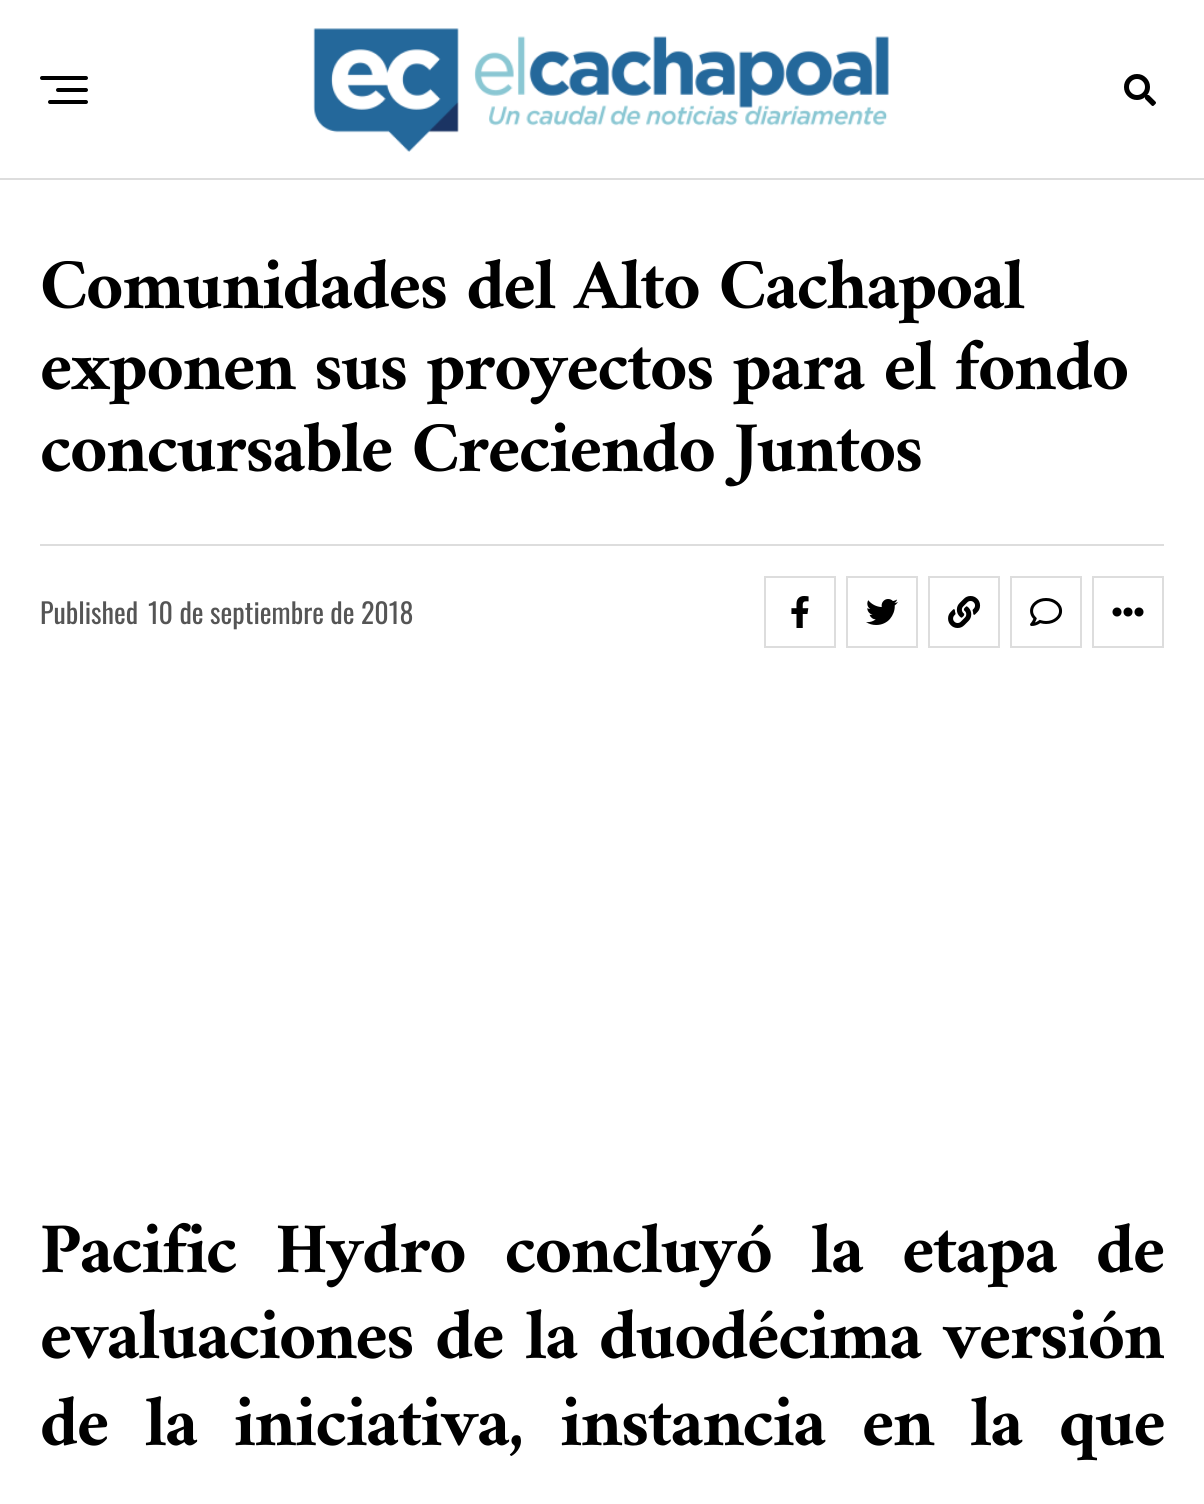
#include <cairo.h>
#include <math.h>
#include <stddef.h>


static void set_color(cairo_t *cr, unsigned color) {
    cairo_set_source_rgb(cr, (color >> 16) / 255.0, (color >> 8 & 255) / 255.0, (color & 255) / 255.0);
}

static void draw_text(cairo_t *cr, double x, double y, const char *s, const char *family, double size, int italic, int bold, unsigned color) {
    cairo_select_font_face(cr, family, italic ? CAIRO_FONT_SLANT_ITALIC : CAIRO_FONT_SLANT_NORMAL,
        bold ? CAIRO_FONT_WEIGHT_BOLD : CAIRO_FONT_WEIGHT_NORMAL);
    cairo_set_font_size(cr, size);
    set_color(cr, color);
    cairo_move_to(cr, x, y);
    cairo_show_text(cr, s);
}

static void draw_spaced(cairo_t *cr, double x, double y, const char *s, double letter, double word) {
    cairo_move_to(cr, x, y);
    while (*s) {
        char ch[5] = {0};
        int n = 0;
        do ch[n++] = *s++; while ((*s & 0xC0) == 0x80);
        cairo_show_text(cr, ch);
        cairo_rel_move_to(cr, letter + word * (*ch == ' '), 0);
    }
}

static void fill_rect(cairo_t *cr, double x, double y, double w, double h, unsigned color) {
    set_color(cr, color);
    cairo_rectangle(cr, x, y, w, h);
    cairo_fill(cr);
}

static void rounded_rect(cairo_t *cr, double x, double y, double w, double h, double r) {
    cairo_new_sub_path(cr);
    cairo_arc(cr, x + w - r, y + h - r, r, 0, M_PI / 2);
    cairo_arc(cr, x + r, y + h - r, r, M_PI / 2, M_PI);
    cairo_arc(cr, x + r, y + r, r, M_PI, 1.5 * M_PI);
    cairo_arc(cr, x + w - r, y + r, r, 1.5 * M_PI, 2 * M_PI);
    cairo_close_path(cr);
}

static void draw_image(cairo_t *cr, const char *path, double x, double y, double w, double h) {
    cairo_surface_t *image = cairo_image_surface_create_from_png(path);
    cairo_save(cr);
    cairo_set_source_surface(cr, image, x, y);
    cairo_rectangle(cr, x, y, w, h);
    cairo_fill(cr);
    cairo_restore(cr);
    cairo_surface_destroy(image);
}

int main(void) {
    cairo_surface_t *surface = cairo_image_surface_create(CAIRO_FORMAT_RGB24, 1204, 1504);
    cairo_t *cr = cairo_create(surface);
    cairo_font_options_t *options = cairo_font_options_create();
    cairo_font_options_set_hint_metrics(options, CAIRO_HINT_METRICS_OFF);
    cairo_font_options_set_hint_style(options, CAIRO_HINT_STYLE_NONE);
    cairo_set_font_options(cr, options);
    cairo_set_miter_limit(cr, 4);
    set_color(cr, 0xFFFFFF);
    cairo_paint(cr);
    fill_rect(cr, 0, 178, 1204, 2, 0xDDDDDD);
    set_color(cr, 0x000000);
    rounded_rect(cr, 40, 76, 48, 4, 2);
    cairo_fill(cr);
    rounded_rect(cr, 56, 88, 32, 4, 2);
    cairo_fill(cr);
    rounded_rect(cr, 48, 100, 40, 4, 2);
    cairo_fill(cr);
    draw_image(cr, "assets/img1.png", 313, 28, 576, 124);
    draw_image(cr, "assets/img2.png", 1124, 74, 32, 32);
    cairo_select_font_face(cr, "Amiri", CAIRO_FONT_SLANT_NORMAL, CAIRO_FONT_WEIGHT_BOLD);
    cairo_set_font_size(cr, 72.25);
    draw_spaced(cr, 40, 308, "Comunidades del Alto Cachapoal", -1.45, 0);
    draw_spaced(cr, 40, 389, "exponen sus proyectos para el fondo", -1.45, 0);
    draw_spaced(cr, 40, 471, "concursable Creciendo Juntos", -1.45, 0);
    fill_rect(cr, 40, 544, 1124, 2, 0xDDDDDD);
    draw_text(cr, 40, 624, "Published", "Oswald", 28, 0, 0, 0x555555);
    draw_text(cr, 148, 624, "10 de septiembre de 2018", "Oswald", 28, 0, 0, 0x555555);
    cairo_rectangle(cr, 765, 577, 70, 70);
    set_color(cr, 0xDDDDDD);
    cairo_stroke(cr);
    draw_image(cr, "assets/img3.png", 791, 596, 18, 32);
    cairo_rectangle(cr, 847, 577, 70, 70);
    cairo_stroke(cr);
    draw_image(cr, "assets/img4.png", 866, 599, 32, 26);
    cairo_rectangle(cr, 929, 577, 70, 70);
    cairo_stroke(cr);
    draw_image(cr, "assets/img5.png", 948, 596, 33, 32);
    cairo_rectangle(cr, 1011, 577, 70, 70);
    cairo_stroke(cr);
    draw_image(cr, "assets/img6.png", 1030, 598, 33, 28);
    cairo_rectangle(cr, 1093, 577, 70, 70);
    cairo_stroke(cr);
    draw_image(cr, "assets/img7.png", 1112, 607, 32, 10);
    cairo_select_font_face(cr, "Amiri", CAIRO_FONT_SLANT_NORMAL, CAIRO_FONT_WEIGHT_BOLD);
    cairo_set_font_size(cr, 72);
    set_color(cr, 0x000000);
    draw_spaced(cr, 40, 1272, "Pacific Hydro concluyó la etapa de", -1.45, 20);
    cairo_save(cr);
    cairo_rectangle(cr, 40, 1180, 1124, 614);
    cairo_clip(cr);
    draw_spaced(cr, 40, 1358, "evaluaciones de la duodécima versión", -1.45, 2.5);
    cairo_restore(cr);
    draw_spaced(cr, 40, 1445, "de la iniciativa, instancia en la que", -1.45, 17.5);
    cairo_surface_write_to_png(surface, "output.png");
    cairo_font_options_destroy(options);
    cairo_destroy(cr);
    cairo_surface_destroy(surface);
    return 0;
}
